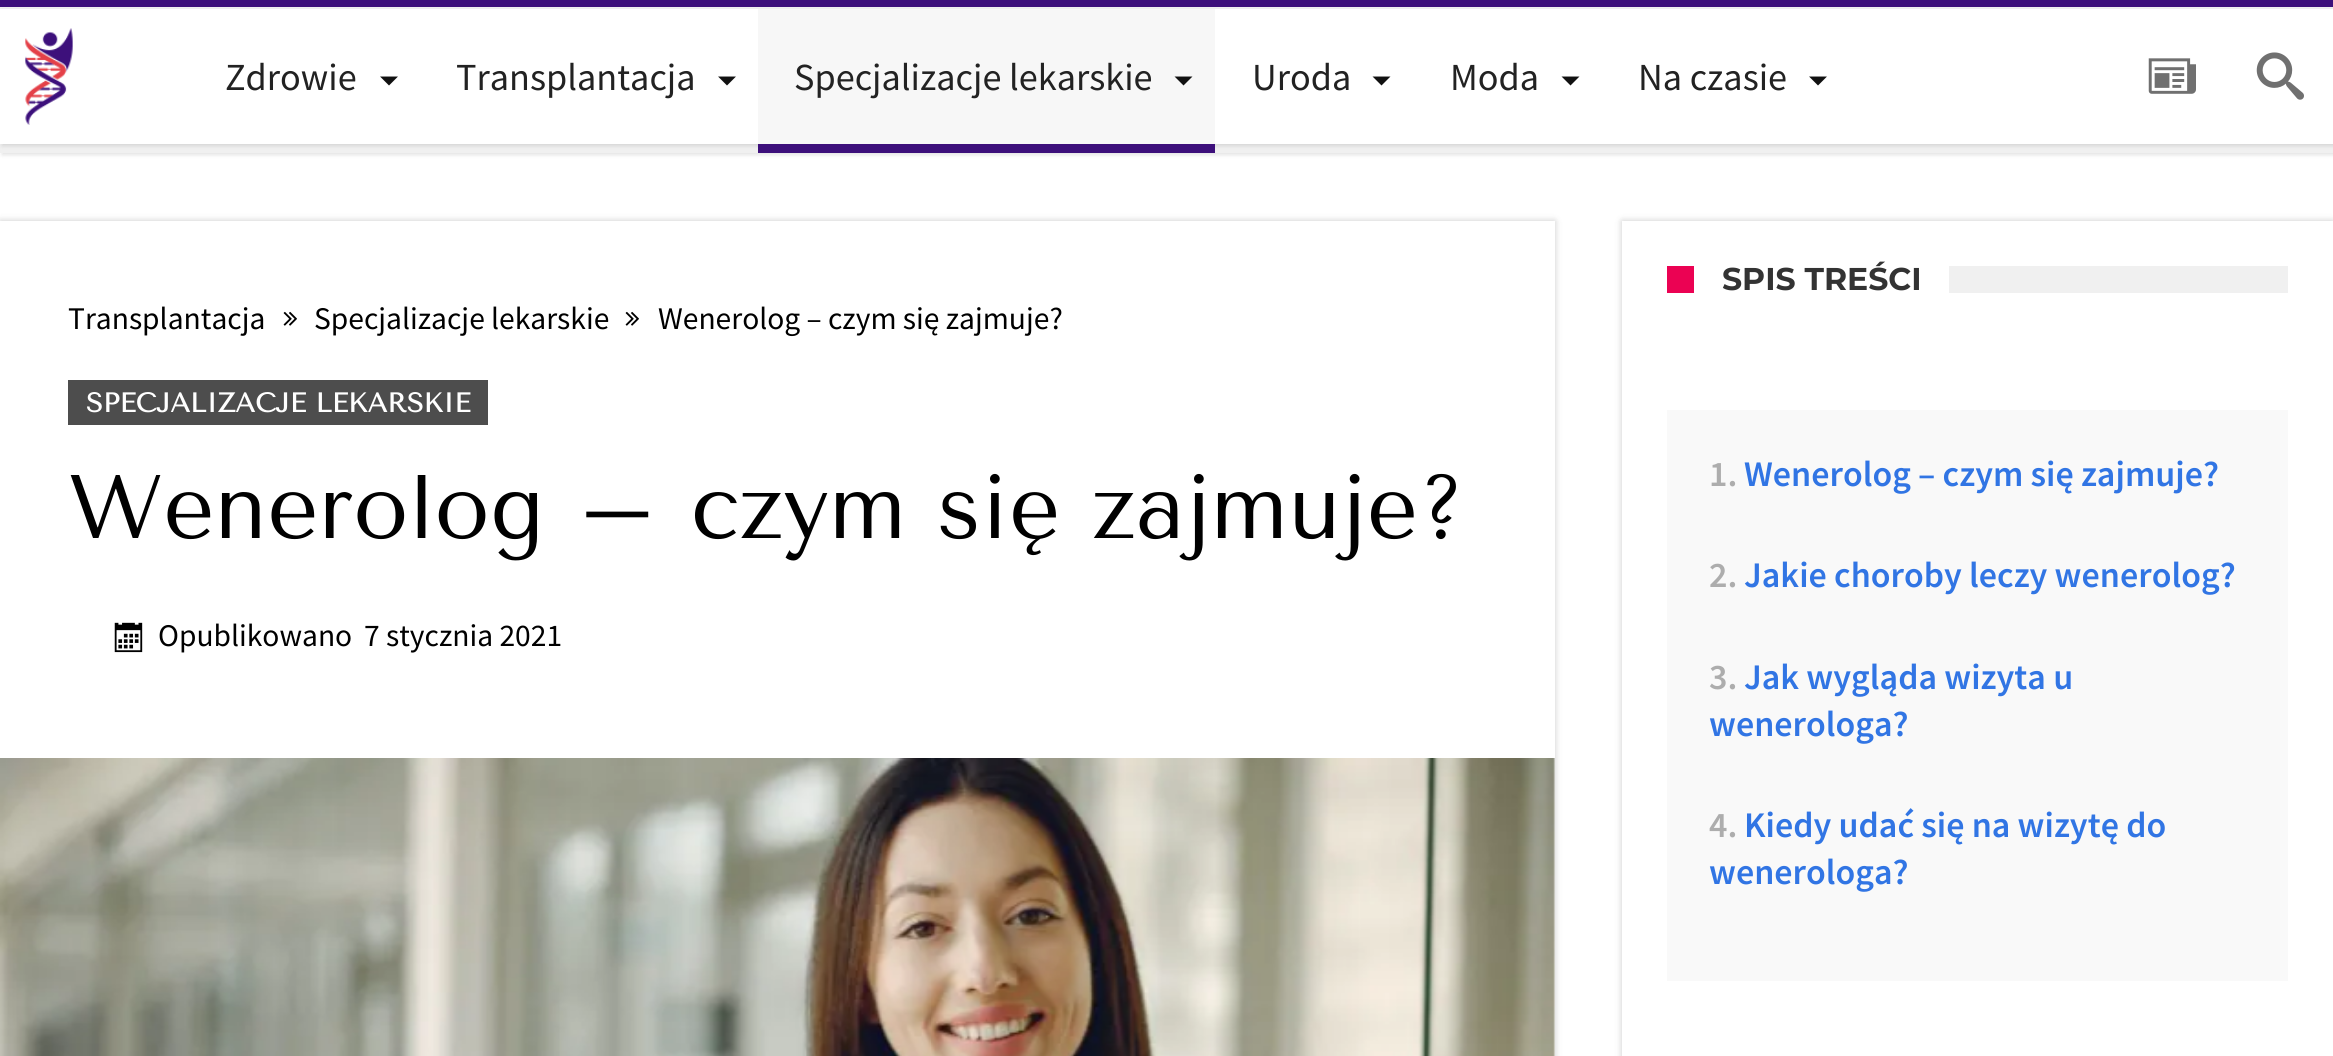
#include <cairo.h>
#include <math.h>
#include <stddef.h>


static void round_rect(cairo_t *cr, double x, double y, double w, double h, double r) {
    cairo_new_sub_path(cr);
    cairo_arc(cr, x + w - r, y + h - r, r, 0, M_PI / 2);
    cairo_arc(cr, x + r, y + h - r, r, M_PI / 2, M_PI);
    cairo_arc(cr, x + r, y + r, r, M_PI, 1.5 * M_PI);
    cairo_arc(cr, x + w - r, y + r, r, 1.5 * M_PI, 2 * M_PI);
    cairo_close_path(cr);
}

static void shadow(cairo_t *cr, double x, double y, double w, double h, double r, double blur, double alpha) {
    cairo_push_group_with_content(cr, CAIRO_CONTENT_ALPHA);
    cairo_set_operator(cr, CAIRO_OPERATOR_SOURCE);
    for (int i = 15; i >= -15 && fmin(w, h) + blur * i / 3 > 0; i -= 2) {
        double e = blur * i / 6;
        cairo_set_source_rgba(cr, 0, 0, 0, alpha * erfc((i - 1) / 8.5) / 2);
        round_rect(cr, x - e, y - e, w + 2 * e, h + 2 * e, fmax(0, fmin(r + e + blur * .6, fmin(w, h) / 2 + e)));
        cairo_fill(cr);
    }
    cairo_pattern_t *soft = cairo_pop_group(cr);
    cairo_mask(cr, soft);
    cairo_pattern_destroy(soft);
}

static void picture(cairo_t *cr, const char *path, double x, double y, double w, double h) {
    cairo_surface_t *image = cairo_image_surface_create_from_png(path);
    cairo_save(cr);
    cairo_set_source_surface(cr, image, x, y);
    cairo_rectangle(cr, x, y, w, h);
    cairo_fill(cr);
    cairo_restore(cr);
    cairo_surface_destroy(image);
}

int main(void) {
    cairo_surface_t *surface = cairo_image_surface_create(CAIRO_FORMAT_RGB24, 2333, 1056);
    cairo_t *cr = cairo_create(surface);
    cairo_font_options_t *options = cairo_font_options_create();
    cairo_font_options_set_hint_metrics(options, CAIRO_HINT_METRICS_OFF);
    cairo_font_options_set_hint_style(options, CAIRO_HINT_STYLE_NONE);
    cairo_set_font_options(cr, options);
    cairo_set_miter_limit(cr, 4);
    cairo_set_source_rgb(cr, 1, 1, 1);
    cairo_paint(cr);
    cairo_set_source_rgb(cr, 0.239, 0.063, 0.482);
    cairo_rectangle(cr, 0, 0, 2333, 7);
    cairo_fill(cr);
    cairo_set_source_rgb(cr, 0, 0, 0);
    shadow(cr, 2, 9, 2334, 146, 0, 2, 0.11);
    cairo_set_source_rgb(cr, 0.941, 0.941, 0.941);
    cairo_rectangle(cr, 0, 7, 2333, 146);
    cairo_fill(cr);
    cairo_set_source_rgb(cr, 0, 0, 0);
    shadow(cr, 2, 11, 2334, 135, 0, 2, 0.11);
    cairo_set_source_rgb(cr, 1, 1, 1);
    cairo_rectangle(cr, 0, 9, 2333, 135);
    cairo_fill(cr);
    picture(cr, "img1.png", 25, 28, 48, 97);
    cairo_select_font_face(cr, "Source Sans Pro", CAIRO_FONT_SLANT_NORMAL, CAIRO_FONT_WEIGHT_NORMAL);
    cairo_set_font_size(cr, 38.25);
    cairo_set_source_rgb(cr, 0.133, 0.133, 0.133);
    cairo_move_to(cr, 225, 90);
    cairo_show_text(cr, "Zdrowie");
    cairo_set_source_rgb(cr, 0.067, 0.067, 0.067);
    cairo_new_path(cr);
    cairo_move_to(cr, 380, 76.5);
    cairo_line_to(cr, 398, 76.5);
    cairo_line_to(cr, 389, 85.5);
    cairo_close_path(cr);
    cairo_fill(cr);
    cairo_set_source_rgb(cr, 0.133, 0.133, 0.133);
    cairo_move_to(cr, 456, 90);
    cairo_show_text(cr, "Transplantacja");
    cairo_set_source_rgb(cr, 0.067, 0.067, 0.067);
    cairo_new_path(cr);
    cairo_move_to(cr, 718, 76.5);
    cairo_line_to(cr, 736, 76.5);
    cairo_line_to(cr, 727, 85.5);
    cairo_close_path(cr);
    cairo_fill(cr);
    cairo_set_source_rgb(cr, 0.965, 0.965, 0.965);
    cairo_rectangle(cr, 758, 9, 457, 135);
    cairo_fill(cr);
    cairo_set_source_rgb(cr, 0.133, 0.133, 0.133);
    cairo_move_to(cr, 794, 90);
    cairo_show_text(cr, "Specjalizacje lekarskie");
    cairo_set_source_rgb(cr, 0.067, 0.067, 0.067);
    cairo_new_path(cr);
    cairo_move_to(cr, 1174.5, 76.5);
    cairo_line_to(cr, 1192.5, 76.5);
    cairo_line_to(cr, 1183.5, 85.5);
    cairo_close_path(cr);
    cairo_fill(cr);
    cairo_set_source_rgb(cr, 0.239, 0.063, 0.482);
    cairo_rectangle(cr, 758, 144, 457, 9);
    cairo_fill(cr);
    cairo_set_source_rgb(cr, 0.133, 0.133, 0.133);
    cairo_move_to(cr, 1252, 90);
    cairo_show_text(cr, "Uroda");
    cairo_set_source_rgb(cr, 0.067, 0.067, 0.067);
    cairo_new_path(cr);
    cairo_move_to(cr, 1372.5, 76.5);
    cairo_line_to(cr, 1390.5, 76.5);
    cairo_line_to(cr, 1381.5, 85.5);
    cairo_close_path(cr);
    cairo_fill(cr);
    cairo_set_source_rgb(cr, 0.133, 0.133, 0.133);
    cairo_move_to(cr, 1450, 90);
    cairo_show_text(cr, "Moda");
    cairo_set_source_rgb(cr, 0.067, 0.067, 0.067);
    cairo_new_path(cr);
    cairo_move_to(cr, 1561.5, 76.5);
    cairo_line_to(cr, 1579.5, 76.5);
    cairo_line_to(cr, 1570.5, 85.5);
    cairo_close_path(cr);
    cairo_fill(cr);
    cairo_set_source_rgb(cr, 0.133, 0.133, 0.133);
    cairo_move_to(cr, 1638, 90);
    cairo_show_text(cr, "Na czasie");
    cairo_set_source_rgb(cr, 0.067, 0.067, 0.067);
    cairo_new_path(cr);
    cairo_move_to(cr, 1809, 76.5);
    cairo_line_to(cr, 1827, 76.5);
    cairo_line_to(cr, 1818, 85.5);
    cairo_close_path(cr);
    cairo_fill(cr);
    picture(cr, "img2.png", 2148, 58, 48, 36);
    picture(cr, "img3.png", 2256, 52, 48, 48);
    cairo_set_source_rgb(cr, 0, 0, 0);
    shadow(cr, 0, 221, 1555, 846, 0, 3.5, 0.21);
    cairo_set_source_rgb(cr, 1, 1, 1);
    cairo_rectangle(cr, 0, 221, 1555, 835);
    cairo_fill(cr);
    cairo_set_font_size(cr, 31.5);
    cairo_set_source_rgb(cr, 0, 0, 0);
    cairo_move_to(cr, 68, 329);
    cairo_show_text(cr, "Transplantacja");
    picture(cr, "img4.png", 283, 311, 14, 15);
    cairo_move_to(cr, 314, 329);
    cairo_show_text(cr, "Specjalizacje lekarskie");
    picture(cr, "img4.png", 625, 311, 14, 15);
    cairo_move_to(cr, 658, 329);
    cairo_show_text(cr, "Wenerolog – czym się zajmuje?");
    cairo_set_source_rgb(cr, 0.302, 0.302, 0.302);
    cairo_rectangle(cr, 68, 380, 420, 45);
    cairo_fill(cr);
    cairo_select_font_face(cr, "Tenor Sans", CAIRO_FONT_SLANT_NORMAL, CAIRO_FONT_WEIGHT_BOLD);
    cairo_set_font_size(cr, 27);
    cairo_set_source_rgb(cr, 1, 1, 1);
    cairo_move_to(cr, 86, 412);
    cairo_show_text(cr, "SPECJALIZACJE LEKARSKIE");
    cairo_select_font_face(cr, "Tenor Sans", CAIRO_FONT_SLANT_NORMAL, CAIRO_FONT_WEIGHT_NORMAL);
    cairo_set_font_size(cr, 90);
    cairo_set_source_rgb(cr, 0, 0, 0);
    cairo_move_to(cr, 68, 538);
    cairo_show_text(cr, "Wenerolog – czym się zajmuje?");
    picture(cr, "img5.png", 114, 622, 29, 31);
    cairo_select_font_face(cr, "Source Sans Pro", CAIRO_FONT_SLANT_NORMAL, CAIRO_FONT_WEIGHT_NORMAL);
    cairo_set_font_size(cr, 31.5);
    cairo_move_to(cr, 158, 646);
    cairo_show_text(cr, "Opublikowano");
    cairo_move_to(cr, 364, 646);
    cairo_show_text(cr, "7 stycznia 2021");
    picture(cr, "img6.png", 0, 758, 1555, 298);
    cairo_set_source_rgb(cr, 0, 0, 0);
    shadow(cr, 1622, 221, 711, 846, 0, 3.5, 0.21);
    cairo_set_source_rgb(cr, 1, 1, 1);
    cairo_rectangle(cr, 1622, 221, 711, 835);
    cairo_fill(cr);
    cairo_set_source_rgb(cr, 0.941, 0.941, 0.941);
    cairo_rectangle(cr, 1949, 266, 339, 27);
    cairo_fill(cr);
    cairo_set_source_rgb(cr, 0.918, 0.008, 0.325);
    cairo_rectangle(cr, 1667, 266, 27, 27);
    cairo_fill(cr);
    cairo_select_font_face(cr, "Montserrat", CAIRO_FONT_SLANT_NORMAL, CAIRO_FONT_WEIGHT_BOLD);
    cairo_set_source_rgb(cr, 0.2, 0.2, 0.2);
    cairo_move_to(cr, 1722, 290);
    cairo_show_text(cr, "SPIS TREŚCI");
    cairo_set_source_rgb(cr, 0.973, 0.973, 0.973);
    cairo_rectangle(cr, 1667, 410, 621, 571);
    cairo_fill(cr);
    cairo_select_font_face(cr, "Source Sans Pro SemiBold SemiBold", CAIRO_FONT_SLANT_NORMAL, CAIRO_FONT_WEIGHT_NORMAL);
    cairo_set_font_size(cr, 36);
    cairo_set_source_rgb(cr, 0.678, 0.678, 0.678);
    cairo_move_to(cr, 1709, 486);
    cairo_show_text(cr, "1.");
    cairo_set_source_rgb(cr, 0.192, 0.459, 0.894);
    cairo_move_to(cr, 1744, 486);
    cairo_show_text(cr, "Wenerolog – czym się zajmuje?");
    cairo_set_source_rgb(cr, 0.678, 0.678, 0.678);
    cairo_move_to(cr, 1709, 587);
    cairo_show_text(cr, "2.");
    cairo_set_source_rgb(cr, 0.192, 0.459, 0.894);
    cairo_move_to(cr, 1744, 587);
    cairo_show_text(cr, "Jakie choroby leczy wenerolog?");
    cairo_set_source_rgb(cr, 0.678, 0.678, 0.678);
    cairo_move_to(cr, 1709, 689);
    cairo_show_text(cr, "3.");
    cairo_set_source_rgb(cr, 0.192, 0.459, 0.894);
    cairo_move_to(cr, 1744, 689);
    cairo_show_text(cr, "Jak wygląda wizyta u");
    cairo_move_to(cr, 1709, 736);
    cairo_show_text(cr, "wenerologa?");
    cairo_set_source_rgb(cr, 0.678, 0.678, 0.678);
    cairo_move_to(cr, 1709, 837);
    cairo_show_text(cr, "4.");
    cairo_set_source_rgb(cr, 0.192, 0.459, 0.894);
    cairo_move_to(cr, 1744, 837);
    cairo_show_text(cr, "Kiedy udać się na wizytę do");
    cairo_move_to(cr, 1709, 884);
    cairo_show_text(cr, "wenerologa?");
    cairo_surface_write_to_png(surface, "page.png");
    cairo_font_options_destroy(options);
    cairo_destroy(cr);
    cairo_surface_destroy(surface);
    return 0;
}
